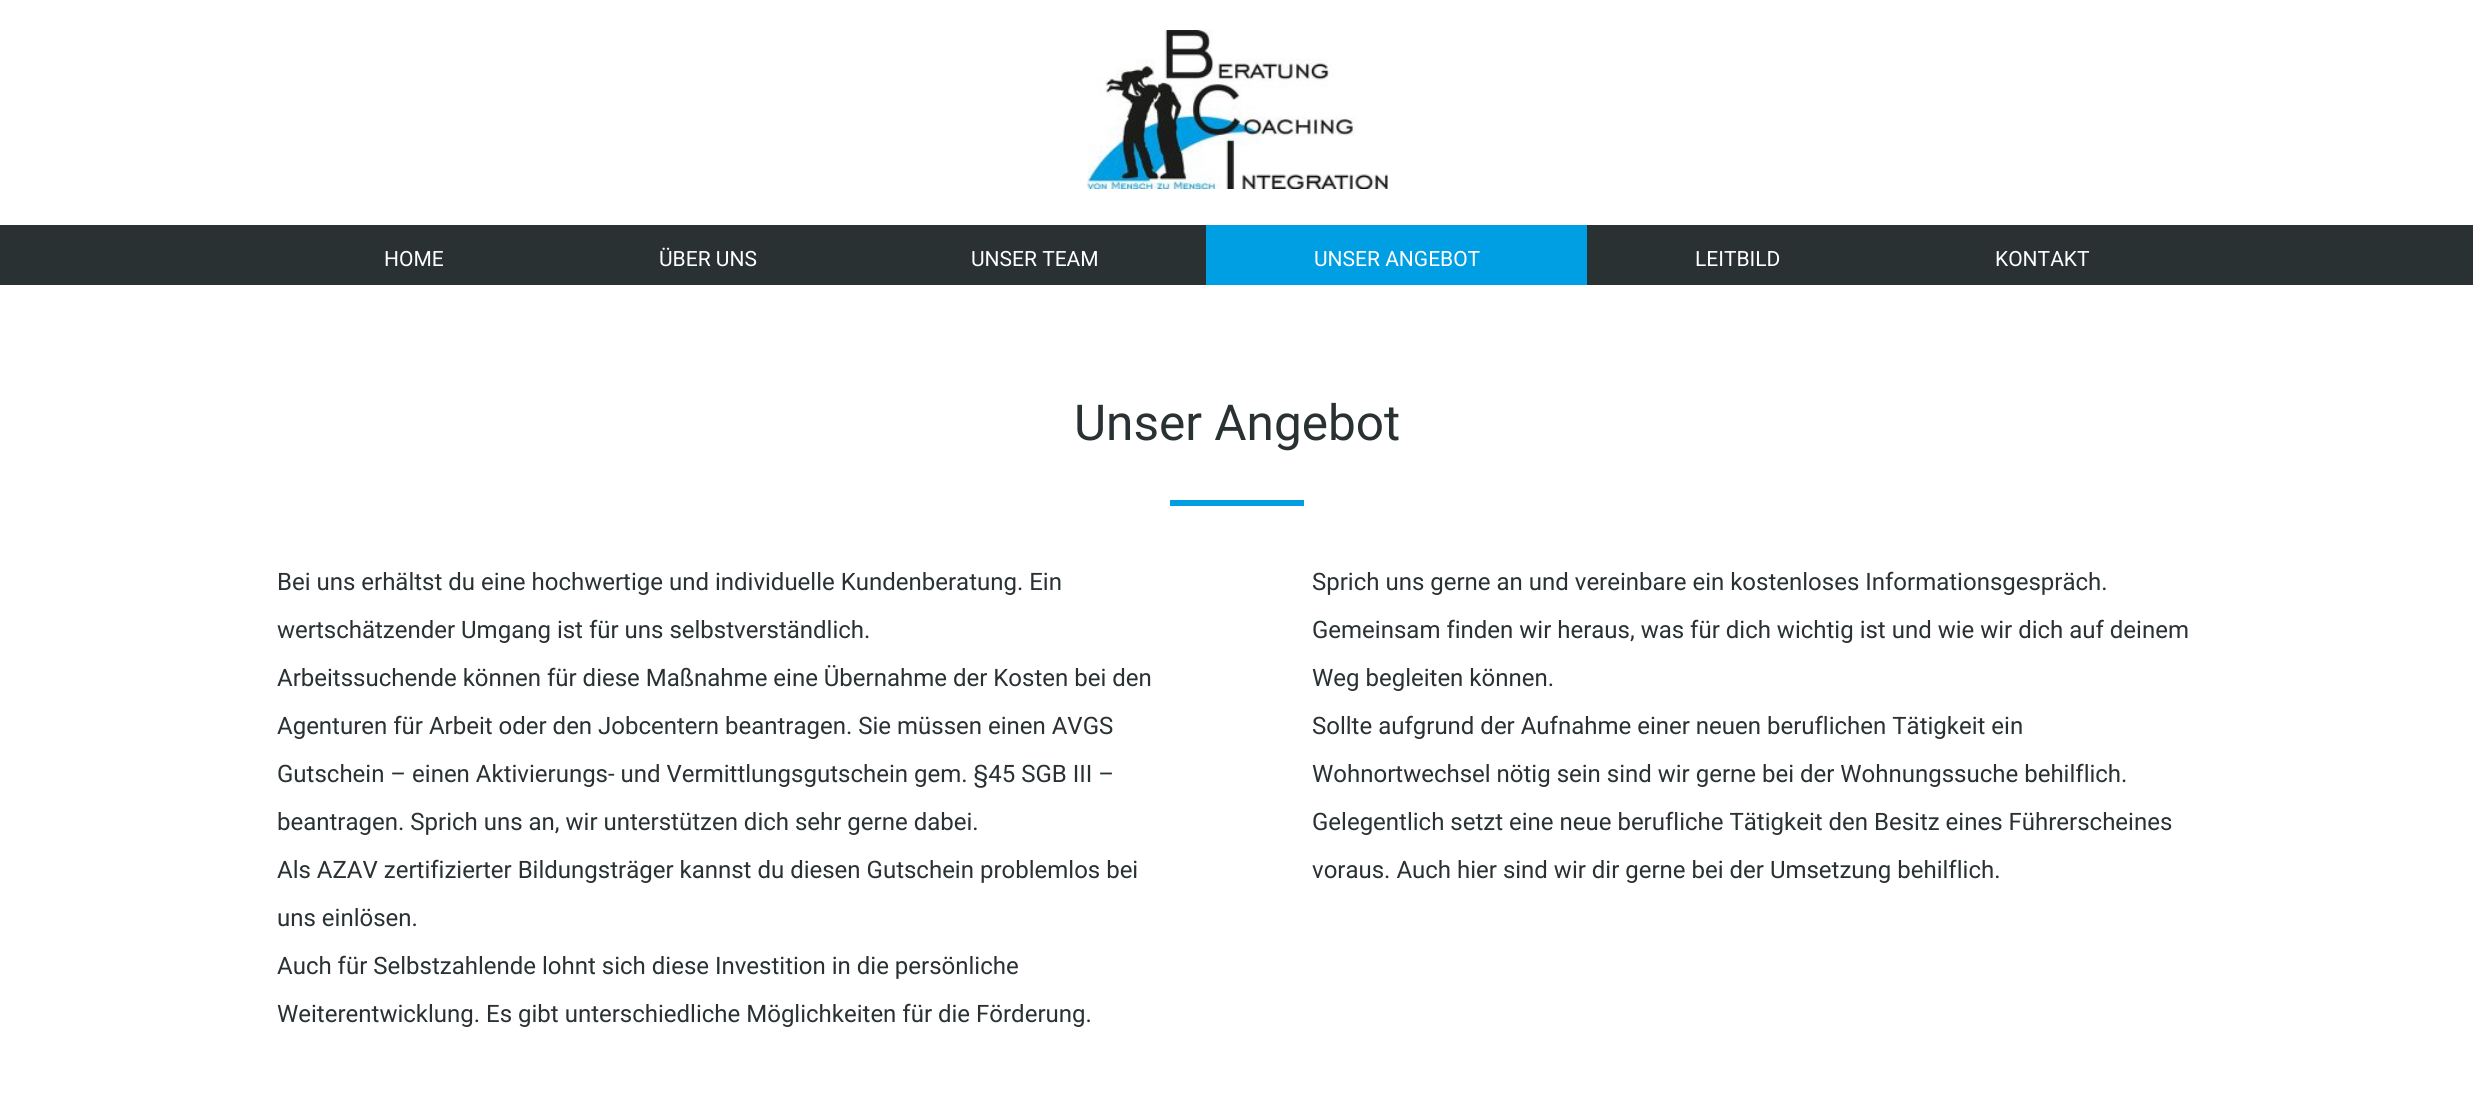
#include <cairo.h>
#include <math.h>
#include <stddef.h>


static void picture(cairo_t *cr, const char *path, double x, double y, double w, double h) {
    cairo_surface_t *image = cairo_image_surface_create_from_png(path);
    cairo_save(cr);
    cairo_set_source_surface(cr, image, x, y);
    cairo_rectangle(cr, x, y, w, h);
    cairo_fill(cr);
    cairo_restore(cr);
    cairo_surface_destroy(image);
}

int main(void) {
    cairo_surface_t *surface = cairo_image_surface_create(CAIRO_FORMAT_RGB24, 2473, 1110);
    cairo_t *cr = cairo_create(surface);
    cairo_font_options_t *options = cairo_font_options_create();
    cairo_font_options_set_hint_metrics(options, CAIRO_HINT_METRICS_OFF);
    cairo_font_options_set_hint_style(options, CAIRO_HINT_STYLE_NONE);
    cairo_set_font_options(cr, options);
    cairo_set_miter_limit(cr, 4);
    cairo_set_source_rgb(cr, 1, 1, 1);
    cairo_paint(cr);
    picture(cr, "img1.png", 1087, 30, 301, 159);
    cairo_set_source_rgb(cr, 0.161, 0.192, 0.2);
    cairo_rectangle(cr, 0, 225, 2473, 60);
    cairo_fill(cr);
    cairo_select_font_face(cr, "Roboto", CAIRO_FONT_SLANT_NORMAL, CAIRO_FONT_WEIGHT_NORMAL);
    cairo_set_font_size(cr, 21);
    cairo_set_source_rgb(cr, 1, 1, 1);
    cairo_move_to(cr, 384, 266);
    cairo_show_text(cr, "HOME");
    cairo_move_to(cr, 659, 266);
    cairo_show_text(cr, "ÜBER UNS");
    cairo_move_to(cr, 971, 266);
    cairo_show_text(cr, "UNSER TEAM");
    cairo_set_source_rgb(cr, 0, 0.624, 0.89);
    cairo_rectangle(cr, 1206, 225, 381, 60);
    cairo_fill(cr);
    cairo_set_source_rgb(cr, 1, 1, 1);
    cairo_move_to(cr, 1314, 266);
    cairo_show_text(cr, "UNSER ANGEBOT");
    cairo_move_to(cr, 1695, 266);
    cairo_show_text(cr, "LEITBILD");
    cairo_move_to(cr, 1995, 266);
    cairo_show_text(cr, "KONTAKT");
    cairo_set_font_size(cr, 49.5);
    cairo_set_source_rgb(cr, 0.161, 0.192, 0.2);
    cairo_move_to(cr, 1074, 440);
    cairo_show_text(cr, "Unser Angebot");
    cairo_set_source_rgb(cr, 0, 0.624, 0.89);
    cairo_rectangle(cr, 1170, 500, 134, 6);
    cairo_fill(cr);
    cairo_set_font_size(cr, 24);
    cairo_set_source_rgb(cr, 0.161, 0.192, 0.2);
    cairo_move_to(cr, 277, 590);
    cairo_show_text(cr, "Bei uns erhältst du eine hochwertige und individuelle Kundenberatung. Ein");
    cairo_move_to(cr, 277, 638);
    cairo_show_text(cr, "wertschätzender Umgang ist für uns selbstverständlich.");
    cairo_move_to(cr, 277, 686);
    cairo_show_text(cr, "Arbeitssuchende können für diese Maßnahme eine Übernahme der Kosten bei den");
    cairo_move_to(cr, 277, 734);
    cairo_show_text(cr, "Agenturen für Arbeit oder den Jobcentern beantragen. Sie müssen einen AVGS");
    cairo_move_to(cr, 277, 782);
    cairo_show_text(cr, "Gutschein – einen Aktivierungs- und Vermittlungsgutschein gem. §45 SGB III –");
    cairo_move_to(cr, 277, 830);
    cairo_show_text(cr, "beantragen. Sprich uns an, wir unterstützen dich sehr gerne dabei.");
    cairo_move_to(cr, 277, 878);
    cairo_show_text(cr, "Als AZAV zertifizierter Bildungsträger kannst du diesen Gutschein problemlos bei");
    cairo_move_to(cr, 277, 926);
    cairo_show_text(cr, "uns einlösen.");
    cairo_move_to(cr, 277, 974);
    cairo_show_text(cr, "Auch für Selbstzahlende lohnt sich diese Investition in die persönliche");
    cairo_move_to(cr, 277, 1022);
    cairo_show_text(cr, "Weiterentwicklung. Es gibt unterschiedliche Möglichkeiten für die Förderung.");
    cairo_move_to(cr, 1312, 590);
    cairo_show_text(cr, "Sprich uns gerne an und vereinbare ein kostenloses Informationsgespräch.");
    cairo_move_to(cr, 1312, 638);
    cairo_show_text(cr, "Gemeinsam finden wir heraus, was für dich wichtig ist und wie wir dich auf deinem");
    cairo_move_to(cr, 1312, 686);
    cairo_show_text(cr, "Weg begleiten können.");
    cairo_move_to(cr, 1312, 734);
    cairo_show_text(cr, "Sollte aufgrund der Aufnahme einer neuen beruflichen Tätigkeit ein");
    cairo_move_to(cr, 1312, 782);
    cairo_show_text(cr, "Wohnortwechsel nötig sein sind wir gerne bei der Wohnungssuche behilflich.");
    cairo_move_to(cr, 1312, 830);
    cairo_show_text(cr, "Gelegentlich setzt eine neue berufliche Tätigkeit den Besitz eines Führerscheines");
    cairo_move_to(cr, 1312, 878);
    cairo_show_text(cr, "voraus. Auch hier sind wir dir gerne bei der Umsetzung behilflich.");
    cairo_surface_write_to_png(surface, "page.png");
    cairo_font_options_destroy(options);
    cairo_destroy(cr);
    cairo_surface_destroy(surface);
    return 0;
}
